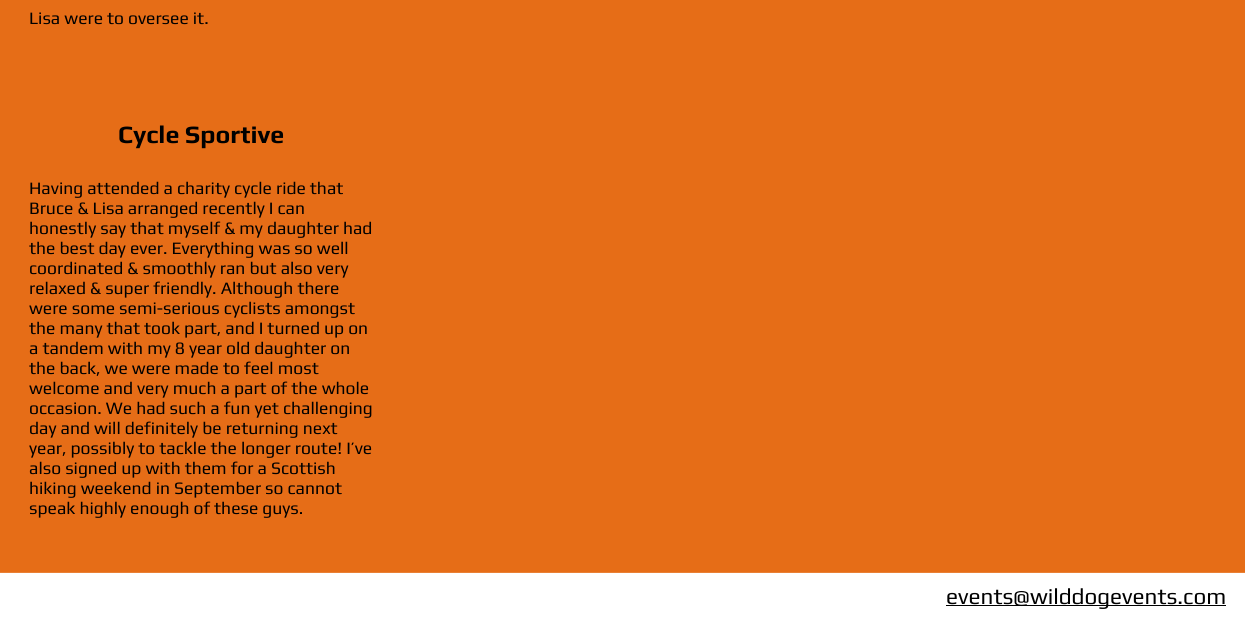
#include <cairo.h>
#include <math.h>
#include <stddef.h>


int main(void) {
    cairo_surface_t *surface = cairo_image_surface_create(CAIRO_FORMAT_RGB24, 1245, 627);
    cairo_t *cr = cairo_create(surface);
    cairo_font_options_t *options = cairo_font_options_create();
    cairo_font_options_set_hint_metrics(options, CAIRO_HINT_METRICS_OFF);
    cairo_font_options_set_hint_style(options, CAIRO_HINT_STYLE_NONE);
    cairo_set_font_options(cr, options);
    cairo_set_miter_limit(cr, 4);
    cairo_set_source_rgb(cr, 1, 1, 1);
    cairo_paint(cr);
    cairo_set_source_rgb(cr, 0.902, 0.427, 0.09);
    cairo_rectangle(cr, 0, 0, 1245, 572);
    cairo_fill(cr);
    cairo_select_font_face(cr, "Play", CAIRO_FONT_SLANT_NORMAL, CAIRO_FONT_WEIGHT_NORMAL);
    cairo_set_font_size(cr, 17.5);
    cairo_set_source_rgb(cr, 0, 0, 0);
    cairo_move_to(cr, 29, 24);
    cairo_show_text(cr, "Lisa were to oversee it.");
    cairo_select_font_face(cr, "Play", CAIRO_FONT_SLANT_NORMAL, CAIRO_FONT_WEIGHT_BOLD);
    cairo_set_font_size(cr, 25);
    cairo_move_to(cr, 118, 143);
    cairo_show_text(cr, "Cycle Sportive");
    cairo_select_font_face(cr, "Play", CAIRO_FONT_SLANT_NORMAL, CAIRO_FONT_WEIGHT_NORMAL);
    cairo_set_font_size(cr, 17.5);
    cairo_move_to(cr, 29, 194);
    cairo_show_text(cr, "Having attended a charity cycle ride that");
    cairo_move_to(cr, 29, 214);
    cairo_show_text(cr, "Bruce & Lisa arranged recently I can");
    cairo_move_to(cr, 29, 234);
    cairo_show_text(cr, "honestly say that myself & my daughter had");
    cairo_move_to(cr, 29, 254);
    cairo_show_text(cr, "the best day ever. Everything was so well");
    cairo_move_to(cr, 29, 274);
    cairo_show_text(cr, "coordinated & smoothly ran but also very");
    cairo_move_to(cr, 29, 294);
    cairo_show_text(cr, "relaxed & super friendly. Although there");
    cairo_move_to(cr, 29, 314);
    cairo_show_text(cr, "were some semi-serious cyclists amongst");
    cairo_move_to(cr, 29, 334);
    cairo_show_text(cr, "the many that took part, and I turned up on");
    cairo_move_to(cr, 29, 354);
    cairo_show_text(cr, "a tandem with my 8 year old daughter on");
    cairo_move_to(cr, 29, 374);
    cairo_show_text(cr, "the back, we were made to feel most");
    cairo_move_to(cr, 29, 394);
    cairo_show_text(cr, "welcome and very much a part of the whole");
    cairo_move_to(cr, 29, 414);
    cairo_show_text(cr, "occasion. We had such a fun yet challenging");
    cairo_move_to(cr, 29, 434);
    cairo_show_text(cr, "day and will definitely be returning next");
    cairo_move_to(cr, 29, 454);
    cairo_show_text(cr, "year, possibly to tackle the longer route! I’ve");
    cairo_move_to(cr, 29, 474);
    cairo_show_text(cr, "also signed up with them for a Scottish");
    cairo_move_to(cr, 29, 494);
    cairo_show_text(cr, "hiking weekend in September so cannot");
    cairo_move_to(cr, 29, 514);
    cairo_show_text(cr, "speak highly enough of these guys.");
    cairo_set_source_rgb(cr, 0.914, 0.502, 0.208);
    cairo_rectangle(cr, 0, 572, 1245, 1);
    cairo_fill(cr);
    cairo_set_source_rgb(cr, 0, 0, 0);
    cairo_rectangle(cr, 946, 605, 280, 1);
    cairo_fill(cr);
    cairo_set_font_size(cr, 22.5);
    cairo_move_to(cr, 946, 604);
    cairo_show_text(cr, "events@wilddogevents.com");
    cairo_surface_write_to_png(surface, "page.png");
    cairo_font_options_destroy(options);
    cairo_destroy(cr);
    cairo_surface_destroy(surface);
    return 0;
}
